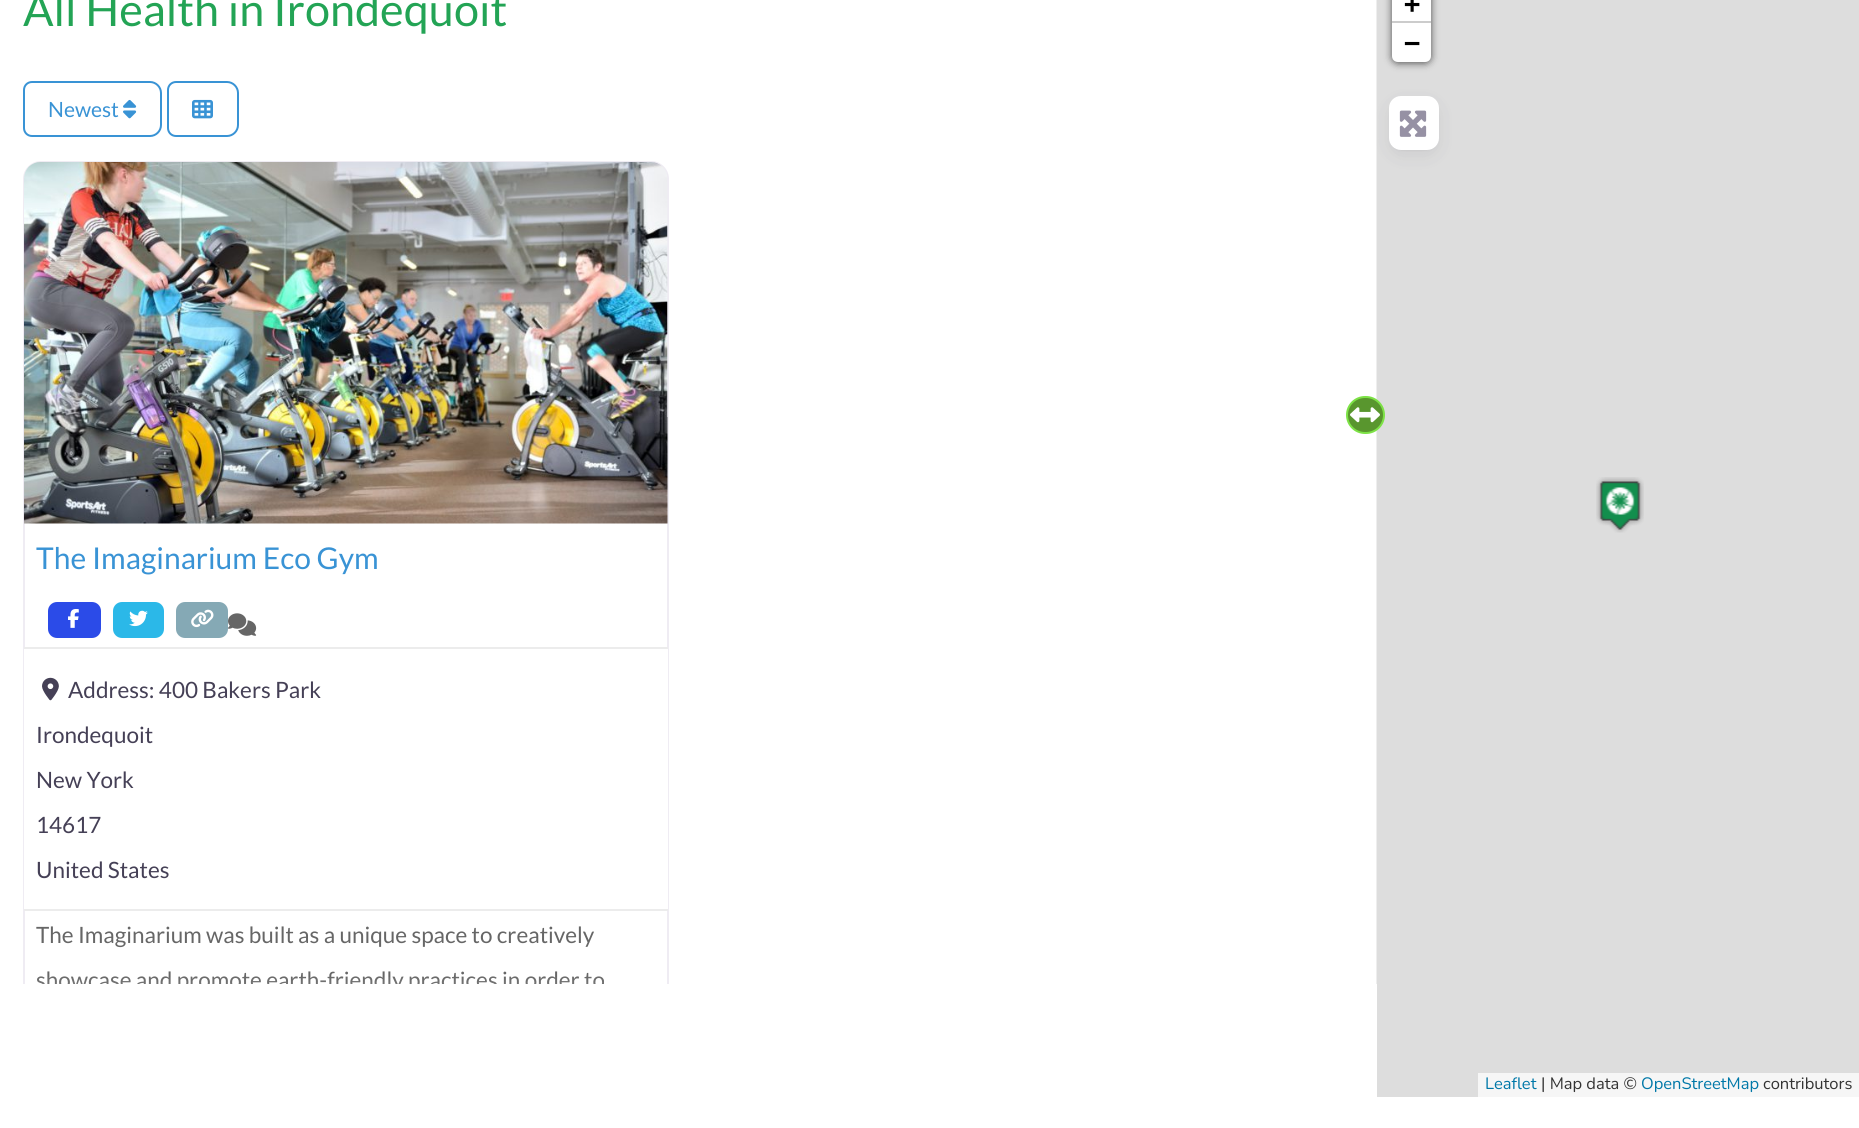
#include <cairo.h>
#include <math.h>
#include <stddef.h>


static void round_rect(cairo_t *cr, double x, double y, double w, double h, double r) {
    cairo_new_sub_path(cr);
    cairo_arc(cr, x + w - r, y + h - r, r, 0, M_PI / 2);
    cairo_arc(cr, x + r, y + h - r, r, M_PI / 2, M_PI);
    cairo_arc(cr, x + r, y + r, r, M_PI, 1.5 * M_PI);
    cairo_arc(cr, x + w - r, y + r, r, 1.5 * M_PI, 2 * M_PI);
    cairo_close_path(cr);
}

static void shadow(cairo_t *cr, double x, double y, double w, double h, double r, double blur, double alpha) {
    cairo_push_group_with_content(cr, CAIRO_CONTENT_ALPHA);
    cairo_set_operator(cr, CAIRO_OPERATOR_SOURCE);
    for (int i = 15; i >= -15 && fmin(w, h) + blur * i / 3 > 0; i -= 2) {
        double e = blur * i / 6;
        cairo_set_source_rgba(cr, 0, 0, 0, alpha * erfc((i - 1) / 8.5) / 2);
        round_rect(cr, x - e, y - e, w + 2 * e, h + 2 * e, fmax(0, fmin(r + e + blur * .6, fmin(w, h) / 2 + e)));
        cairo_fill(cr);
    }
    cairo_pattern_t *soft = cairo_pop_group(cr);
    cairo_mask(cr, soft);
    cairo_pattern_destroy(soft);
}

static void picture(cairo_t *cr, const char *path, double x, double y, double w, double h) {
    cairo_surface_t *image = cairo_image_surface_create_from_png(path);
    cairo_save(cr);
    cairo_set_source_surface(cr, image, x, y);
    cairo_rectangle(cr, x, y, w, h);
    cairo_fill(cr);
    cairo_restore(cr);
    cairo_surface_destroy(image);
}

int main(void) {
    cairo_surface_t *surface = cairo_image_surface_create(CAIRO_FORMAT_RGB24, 1859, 1128);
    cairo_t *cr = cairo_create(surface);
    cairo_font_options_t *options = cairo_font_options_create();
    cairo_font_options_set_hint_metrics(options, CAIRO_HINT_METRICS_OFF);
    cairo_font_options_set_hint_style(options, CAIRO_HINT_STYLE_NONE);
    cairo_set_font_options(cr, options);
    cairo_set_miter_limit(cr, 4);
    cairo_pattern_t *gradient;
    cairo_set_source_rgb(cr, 1, 1, 1);
    cairo_paint(cr);
    cairo_set_source_rgb(cr, 0.933, 0.933, 0.933);
    cairo_rectangle(cr, 1376, 0, 1, 984);
    cairo_fill(cr);
    cairo_select_font_face(cr, "Lato", CAIRO_FONT_SLANT_NORMAL, CAIRO_FONT_WEIGHT_NORMAL);
    cairo_set_font_size(cr, 45);
    cairo_set_source_rgb(cr, 0.137, 0.643, 0.333);
    cairo_move_to(cr, 23, 26);
    cairo_show_text(cr, "All Health in Irondequoit");
    cairo_new_path(cr);
    cairo_move_to(cr, 32, 82);
    cairo_line_to(cr, 150, 82);
    cairo_curve_to(cr, 156, 82, 161, 87, 161, 93);
    cairo_line_to(cr, 161, 125);
    cairo_curve_to(cr, 161, 131, 156, 136, 150, 136);
    cairo_line_to(cr, 32, 136);
    cairo_curve_to(cr, 27.5, 136, 24, 132.5, 24, 128);
    cairo_line_to(cr, 24, 90);
    cairo_curve_to(cr, 24, 85.5, 27.5, 82, 32, 82);
    cairo_close_path(cr);
    cairo_set_source_rgb(cr, 0.224, 0.576, 0.835);
    cairo_stroke(cr);
    cairo_set_font_size(cr, 21);
    cairo_move_to(cr, 48, 117);
    cairo_show_text(cr, "Newest");
    picture(cr, "img1.png", 123, 99, 14, 20);
    cairo_new_path(cr);
    cairo_move_to(cr, 176, 82);
    cairo_line_to(cr, 227, 82);
    cairo_curve_to(cr, 233, 82, 238, 87, 238, 93);
    cairo_line_to(cr, 238, 125);
    cairo_curve_to(cr, 238, 131, 233, 136, 227, 136);
    cairo_line_to(cr, 176, 136);
    cairo_curve_to(cr, 171.5, 136, 168, 132.5, 168, 128);
    cairo_line_to(cr, 168, 90);
    cairo_curve_to(cr, 168, 85.5, 171.5, 82, 176, 82);
    cairo_close_path(cr);
    cairo_stroke(cr);
    picture(cr, "img2.png", 192, 99, 21, 20);
    cairo_save(cr);
    cairo_rectangle(cr, 0, 0, 1376, 984);
    cairo_clip(cr);
    round_rect(cr, 24, 162, 644, 941, 17);
    cairo_set_source_rgb(cr, 0.937, 0.925, 0.953);
    cairo_stroke(cr);
    cairo_restore(cr);
    picture(cr, "img3.png", 24, 162, 644, 362);
    cairo_set_font_size(cr, 30);
    cairo_move_to(cr, 36, 569);
    cairo_show_text(cr, "The Imaginarium Eco Gym");
    cairo_set_source_rgb(cr, 0.169, 0.294, 0.91);
    round_rect(cr, 48, 602, 53, 36, 9);
    cairo_fill(cr);
    picture(cr, "img4.png", 68, 609, 11, 19);
    cairo_set_source_rgb(cr, 0.169, 0.722, 0.91);
    round_rect(cr, 113, 602, 51, 36, 9);
    cairo_fill(cr);
    picture(cr, "img5.png", 129, 610, 19, 17);
    cairo_set_source_rgb(cr, 0.522, 0.663, 0.71);
    round_rect(cr, 176, 602, 52, 36, 9);
    cairo_fill(cr);
    picture(cr, "img6.png", 191, 609, 23, 19);
    picture(cr, "img7.png", 228, 613, 29, 23);
    cairo_set_source_rgb(cr, 1, 1, 1);
    cairo_rectangle(cr, 24, 649, 644, 260);
    cairo_fill(cr);
    cairo_set_source_rgb(cr, 0.922, 0.922, 0.922);
    cairo_rectangle(cr, 24, 647, 644, 2);
    cairo_fill(cr);
    cairo_rectangle(cr, 24, 909, 644, 2);
    cairo_fill(cr);
    picture(cr, "img8.png", 42, 677, 17, 24);
    cairo_set_font_size(cr, 22.5);
    cairo_set_source_rgb(cr, 0.271, 0.251, 0.337);
    cairo_move_to(cr, 68, 698);
    cairo_show_text(cr, "Address: 400 Bakers Park");
    cairo_move_to(cr, 36, 743);
    cairo_show_text(cr, "Irondequoit");
    cairo_move_to(cr, 36, 788);
    cairo_show_text(cr, "New York");
    cairo_move_to(cr, 36, 833);
    cairo_show_text(cr, "14617");
    cairo_move_to(cr, 36, 878);
    cairo_show_text(cr, "United States");
    cairo_set_source_rgb(cr, 0.4, 0.4, 0.4);
    cairo_move_to(cr, 36, 943);
    cairo_show_text(cr, "The Imaginarium was built as a unique space to creatively");
    cairo_save(cr);
    cairo_rectangle(cr, 36, 911, 620, 73);
    cairo_clip(cr);
    cairo_move_to(cr, 36, 988);
    cairo_show_text(cr, "showcase and promote earth-friendly practices in order to");
    cairo_restore(cr);
    gradient = cairo_pattern_create_linear(346, 974, 346, 1091);
    cairo_pattern_add_color_stop_rgba(gradient, 0, 1, 1, 1, 0);
    cairo_pattern_add_color_stop_rgba(gradient, 1, 1, 1, 1, 1);
    cairo_set_source(cr, gradient);
    cairo_pattern_destroy(gradient);
    cairo_rectangle(cr, 36, 977, 568, 7);
    cairo_fill(cr);
    cairo_set_source_rgb(cr, 0.867, 0.867, 0.867);
    cairo_rectangle(cr, 1377, 0, 482, 1097);
    cairo_fill(cr);
    cairo_set_source_rgb(cr, 0.349, 0.588, 0.18);
    round_rect(cr, 1347, 397, 37, 36, 18);
    cairo_fill_preserve(cr);
    cairo_set_source_rgb(cr, 0.49, 0.886, 0.275);
    cairo_stroke(cr);
    picture(cr, "img9.png", 1350, 407, 30, 16);
    cairo_set_source_rgb(cr, 0, 0, 0);
    shadow(cr, 1392, -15, 39, 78, 6, 4, 0.65);
    cairo_set_source_rgb(cr, 1, 1, 1);
    cairo_rectangle(cr, 1392, 0, 39, 21);
    cairo_fill(cr);
    cairo_set_source_rgb(cr, 0.8, 0.8, 0.8);
    cairo_rectangle(cr, 1392, 21, 39, 2);
    cairo_fill(cr);
    cairo_select_font_face(cr, "DejaVu Sans Mono", CAIRO_FONT_SLANT_NORMAL, CAIRO_FONT_WEIGHT_BOLD);
    cairo_set_font_size(cr, 27);
    cairo_set_source_rgb(cr, 0, 0, 0);
    cairo_move_to(cr, 1404, 13);
    cairo_show_text(cr, "+");
    cairo_set_source_rgb(cr, 1, 1, 1);
    cairo_new_path(cr);
    cairo_move_to(cr, 1392, 23);
    cairo_line_to(cr, 1431, 23);
    cairo_line_to(cr, 1431, 56);
    cairo_curve_to(cr, 1431, 59.5, 1428.5, 62, 1425, 62);
    cairo_line_to(cr, 1398, 62);
    cairo_curve_to(cr, 1394.5, 62, 1392, 59.5, 1392, 56);
    cairo_close_path(cr);
    cairo_fill(cr);
    cairo_set_source_rgb(cr, 0, 0, 0);
    cairo_move_to(cr, 1404, 52);
    cairo_show_text(cr, "−");
    cairo_set_source_rgb(cr, 0.961, 0.961, 0.961);
    cairo_rectangle(cr, 1478, 1073, 381, 24);
    cairo_fill(cr);
    cairo_select_font_face(cr, "Nunito", CAIRO_FONT_SLANT_NORMAL, CAIRO_FONT_WEIGHT_NORMAL);
    cairo_set_font_size(cr, 16.5);
    cairo_set_source_rgb(cr, 0, 0.471, 0.659);
    cairo_move_to(cr, 1485, 1089);
    cairo_show_text(cr, "Leaflet");
    cairo_set_source_rgb(cr, 0.2, 0.2, 0.2);
    cairo_move_to(cr, 1541, 1089);
    cairo_show_text(cr, "| Map data ©");
    cairo_set_source_rgb(cr, 0, 0.471, 0.659);
    cairo_move_to(cr, 1641, 1089);
    cairo_show_text(cr, "OpenStreetMap");
    cairo_set_source_rgb(cr, 0.2, 0.2, 0.2);
    cairo_move_to(cr, 1763, 1089);
    cairo_show_text(cr, "contributors");
    picture(cr, "img10.png", 1596, 477, 48, 56);
    cairo_set_source_rgb(cr, 0.122, 0.106, 0.176);
    shadow(cr, 1389, 102, 50, 54, 12, 9, 0.08);
    shadow(cr, 1392, 102, 44, 48, 9, 1.5, 0.08);
    cairo_set_source_rgb(cr, 1, 1, 1);
    round_rect(cr, 1389, 96, 50, 54, 12);
    cairo_fill(cr);
    picture(cr, "img11.png", 1399, 110, 28, 27);
    cairo_surface_write_to_png(surface, "page.png");
    cairo_font_options_destroy(options);
    cairo_destroy(cr);
    cairo_surface_destroy(surface);
    return 0;
}
